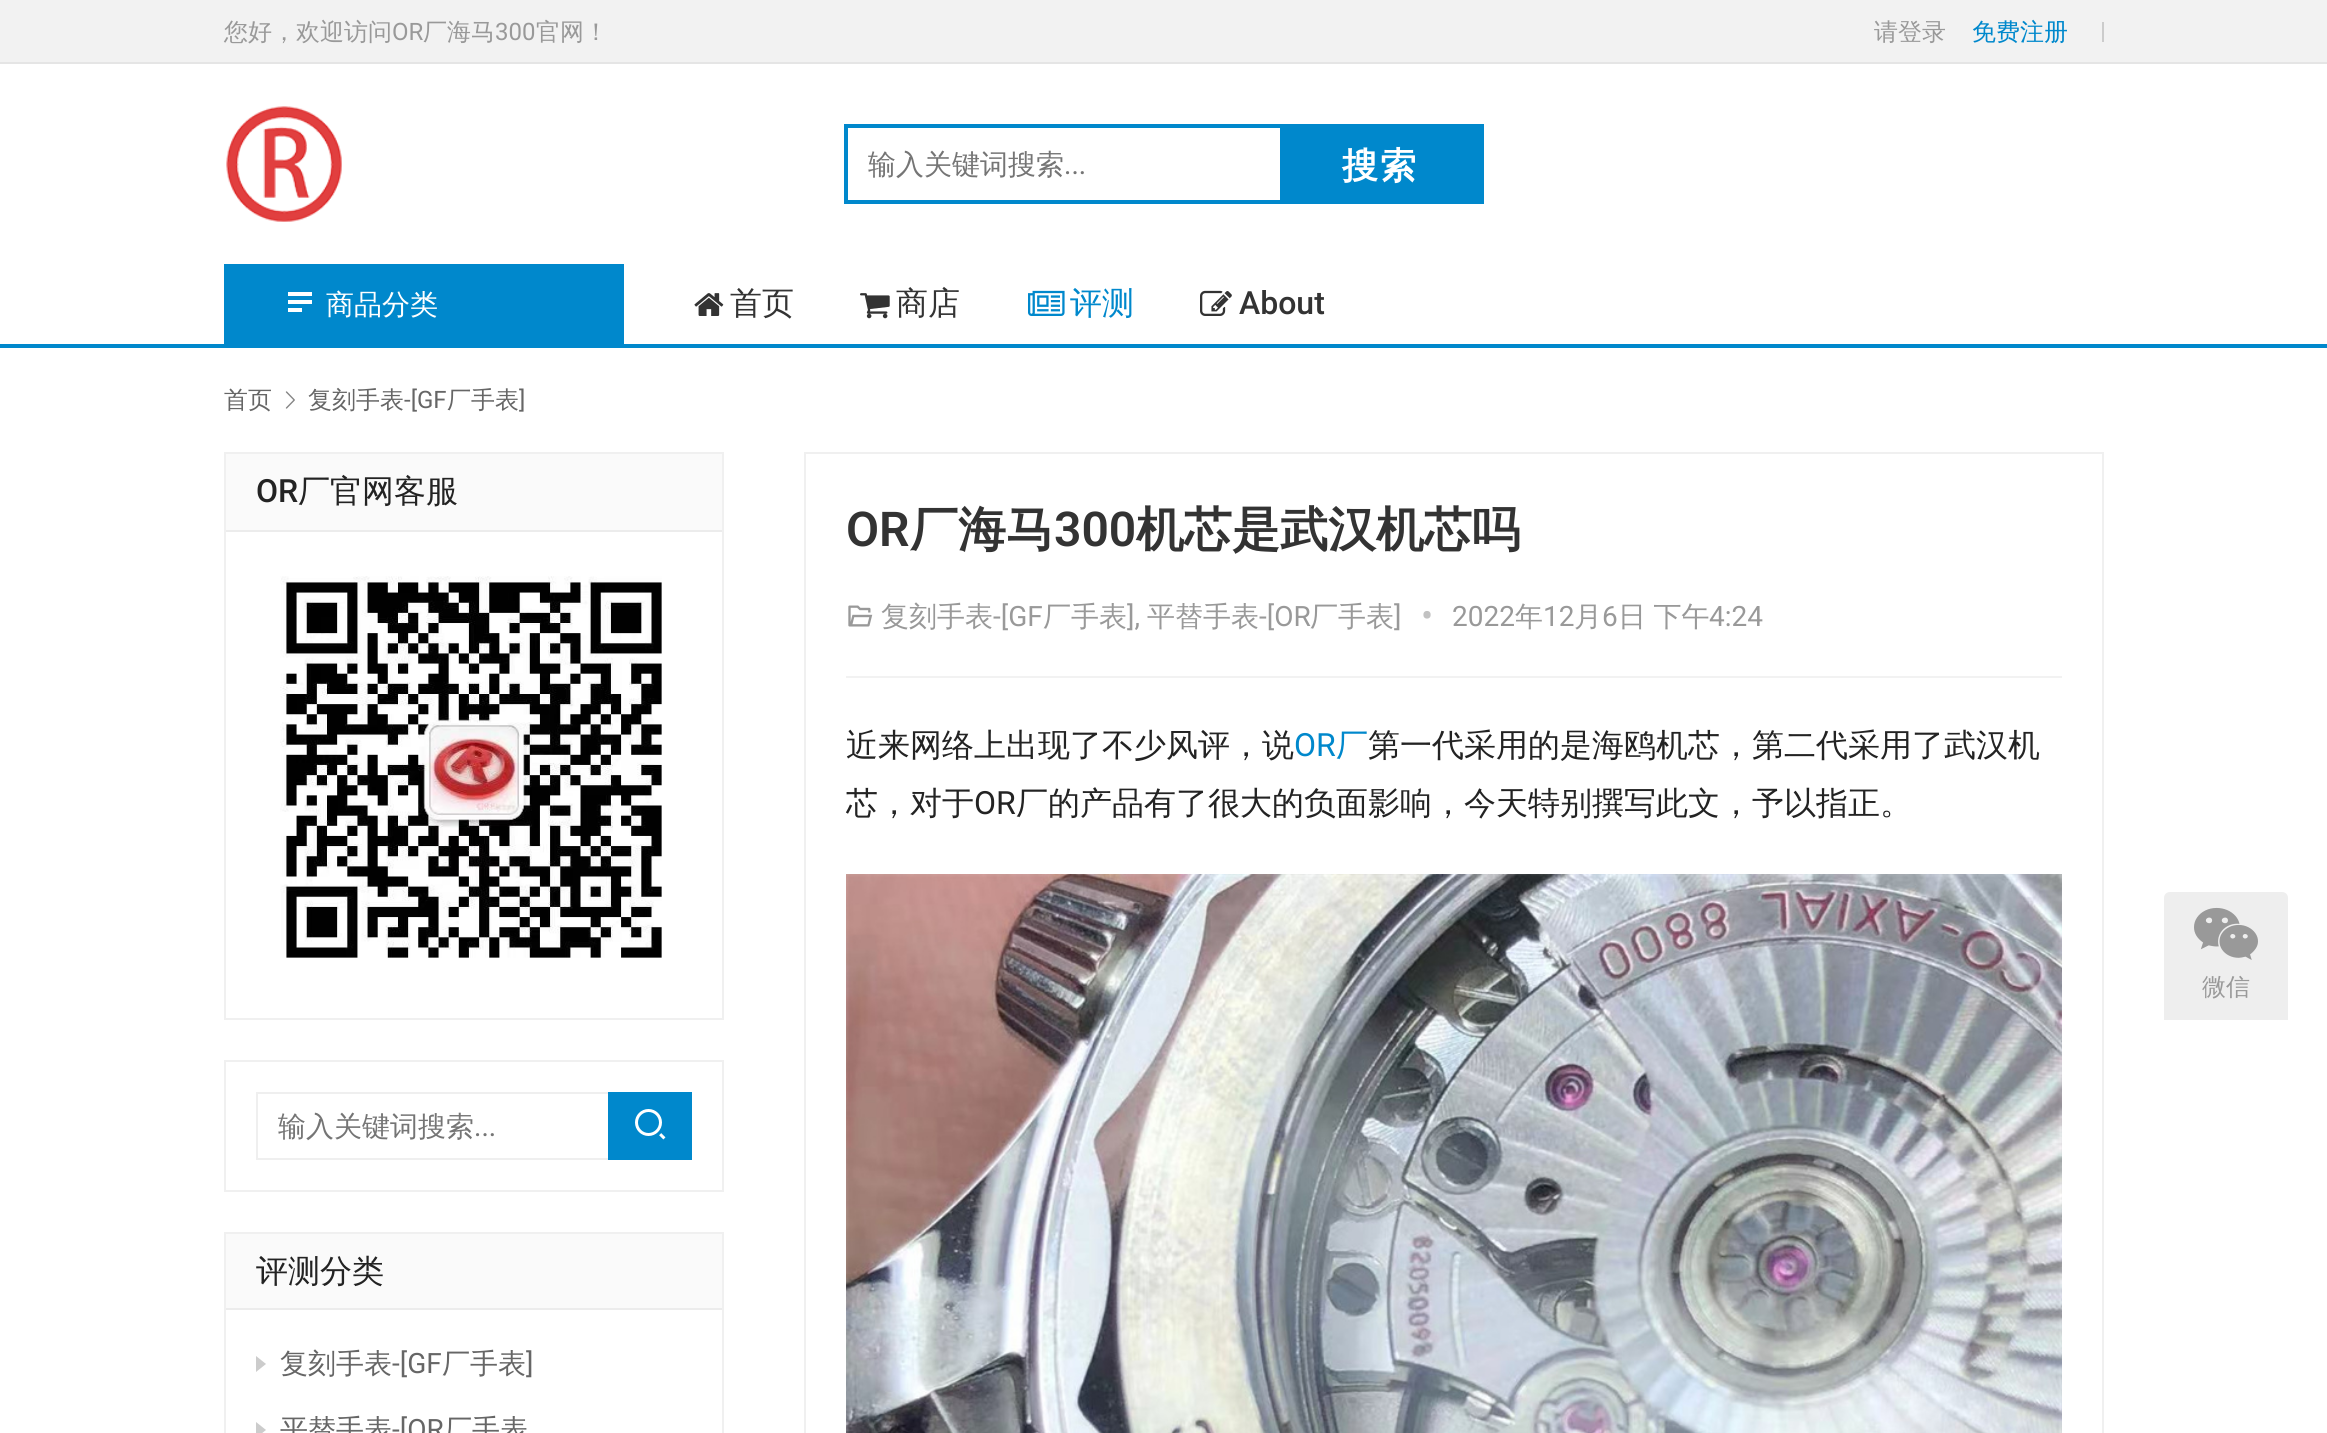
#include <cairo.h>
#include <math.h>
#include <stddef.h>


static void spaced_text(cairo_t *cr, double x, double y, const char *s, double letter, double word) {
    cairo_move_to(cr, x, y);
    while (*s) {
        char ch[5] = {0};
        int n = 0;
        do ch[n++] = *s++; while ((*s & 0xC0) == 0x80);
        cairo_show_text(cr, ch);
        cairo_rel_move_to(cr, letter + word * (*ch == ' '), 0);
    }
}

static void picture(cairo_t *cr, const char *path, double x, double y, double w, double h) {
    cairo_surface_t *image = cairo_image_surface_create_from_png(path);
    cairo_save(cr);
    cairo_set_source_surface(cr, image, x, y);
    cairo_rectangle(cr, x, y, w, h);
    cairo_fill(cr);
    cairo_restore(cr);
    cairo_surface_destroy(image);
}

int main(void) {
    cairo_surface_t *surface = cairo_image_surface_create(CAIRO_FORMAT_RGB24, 2327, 1433);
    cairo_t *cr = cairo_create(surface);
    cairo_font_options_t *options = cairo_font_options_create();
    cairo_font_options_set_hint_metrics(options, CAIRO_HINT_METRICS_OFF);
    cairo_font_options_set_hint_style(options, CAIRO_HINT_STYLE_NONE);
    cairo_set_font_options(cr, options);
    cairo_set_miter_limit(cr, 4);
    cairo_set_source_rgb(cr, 1, 1, 1);
    cairo_paint(cr);
    cairo_set_source_rgb(cr, 0, 0.533, 0.8);
    cairo_rectangle(cr, 0, 344, 2327, 4);
    cairo_fill(cr);
    cairo_set_source_rgb(cr, 0.949, 0.949, 0.949);
    cairo_rectangle(cr, 0, 0, 2327, 62);
    cairo_fill(cr);
    cairo_set_source_rgb(cr, 0.898, 0.898, 0.898);
    cairo_rectangle(cr, 0, 62, 2327, 2);
    cairo_fill(cr);
    cairo_select_font_face(cr, "WenQuanYi Zen Hei Medium", CAIRO_FONT_SLANT_NORMAL, CAIRO_FONT_WEIGHT_NORMAL);
    cairo_set_font_size(cr, 24);
    cairo_set_source_rgb(cr, 0.6, 0.6, 0.6);
    cairo_move_to(cr, 224, 40);
    cairo_show_text(cr, "您好，欢迎访问");
    cairo_select_font_face(cr, "Roboto", CAIRO_FONT_SLANT_NORMAL, CAIRO_FONT_WEIGHT_NORMAL);
    cairo_move_to(cr, 392, 40);
    cairo_show_text(cr, "OR");
    cairo_select_font_face(cr, "WenQuanYi Zen Hei Medium", CAIRO_FONT_SLANT_NORMAL, CAIRO_FONT_WEIGHT_NORMAL);
    cairo_move_to(cr, 423, 40);
    cairo_show_text(cr, "厂海马");
    cairo_select_font_face(cr, "Roboto", CAIRO_FONT_SLANT_NORMAL, CAIRO_FONT_WEIGHT_NORMAL);
    cairo_move_to(cr, 495, 40);
    cairo_show_text(cr, "300");
    cairo_select_font_face(cr, "WenQuanYi Zen Hei Medium", CAIRO_FONT_SLANT_NORMAL, CAIRO_FONT_WEIGHT_NORMAL);
    cairo_move_to(cr, 536, 40);
    cairo_show_text(cr, "官网！");
    cairo_move_to(cr, 1874, 40);
    cairo_show_text(cr, "请登录");
    cairo_set_source_rgb(cr, 0, 0.533, 0.8);
    cairo_move_to(cr, 1972, 40);
    cairo_show_text(cr, "免费注册");
    cairo_set_source_rgb(cr, 0.8, 0.8, 0.8);
    cairo_rectangle(cr, 2102, 22, 2, 20);
    cairo_fill(cr);
    picture(cr, "img1.png", 226, 106, 116, 116);
    cairo_rectangle(cr, 846, 126, 636, 76);
    cairo_set_source_rgb(cr, 0, 0.533, 0.8);
    cairo_set_line_width(cr, 4);
    cairo_stroke(cr);
    cairo_set_font_size(cr, 28);
    cairo_set_source_rgb(cr, 0.459, 0.459, 0.459);
    cairo_move_to(cr, 868, 174);
    cairo_show_text(cr, "输入关键词搜索");
    cairo_select_font_face(cr, "Roboto", CAIRO_FONT_SLANT_NORMAL, CAIRO_FONT_WEIGHT_NORMAL);
    cairo_move_to(cr, 1064, 174);
    cairo_show_text(cr, "...");
    cairo_set_source_rgb(cr, 0, 0.533, 0.8);
    cairo_rectangle(cr, 1280, 128, 200, 72);
    cairo_fill(cr);
    cairo_select_font_face(cr, "WenQuanYi Zen Hei", CAIRO_FONT_SLANT_NORMAL, CAIRO_FONT_WEIGHT_BOLD);
    cairo_set_font_size(cr, 36);
    cairo_set_source_rgb(cr, 1, 1, 1);
    spaced_text(cr, 1342, 178, "搜索", 2, 0);
    cairo_set_source_rgb(cr, 0, 0.533, 0.8);
    cairo_rectangle(cr, 224, 264, 400, 80);
    cairo_fill(cr);
    picture(cr, "img2.png", 288, 292, 24, 20);
    cairo_select_font_face(cr, "WenQuanYi Zen Hei Medium", CAIRO_FONT_SLANT_NORMAL, CAIRO_FONT_WEIGHT_NORMAL);
    cairo_set_font_size(cr, 28);
    cairo_set_source_rgb(cr, 1, 1, 1);
    cairo_move_to(cr, 326, 314);
    cairo_show_text(cr, "商品分类");
    picture(cr, "img3.png", 694, 293, 30, 23);
    cairo_set_font_size(cr, 32);
    cairo_set_source_rgb(cr, 0.2, 0.2, 0.2);
    cairo_move_to(cr, 730, 314);
    cairo_show_text(cr, "首页");
    picture(cr, "img4.png", 860, 293, 30, 26);
    cairo_move_to(cr, 896, 314);
    cairo_show_text(cr, "商店");
    picture(cr, "img5.png", 1028, 290, 37, 26);
    cairo_set_source_rgb(cr, 0, 0.533, 0.8);
    cairo_move_to(cr, 1070, 314);
    cairo_show_text(cr, "评测");
    picture(cr, "img6.png", 1200, 290, 32, 26);
    cairo_select_font_face(cr, "Roboto Medium", CAIRO_FONT_SLANT_NORMAL, CAIRO_FONT_WEIGHT_NORMAL);
    cairo_set_source_rgb(cr, 0.2, 0.2, 0.2);
    cairo_move_to(cr, 1239, 314);
    cairo_show_text(cr, "About");
    cairo_select_font_face(cr, "WenQuanYi Zen Hei Medium", CAIRO_FONT_SLANT_NORMAL, CAIRO_FONT_WEIGHT_NORMAL);
    cairo_set_font_size(cr, 24);
    cairo_set_source_rgb(cr, 0.4, 0.4, 0.4);
    cairo_move_to(cr, 224, 408);
    cairo_show_text(cr, "首页");
    picture(cr, "img7.png", 285, 391, 10, 18);
    cairo_move_to(cr, 308, 408);
    cairo_show_text(cr, "复刻手表");
    cairo_select_font_face(cr, "Roboto", CAIRO_FONT_SLANT_NORMAL, CAIRO_FONT_WEIGHT_NORMAL);
    cairo_move_to(cr, 404, 408);
    cairo_show_text(cr, "-[GF");
    cairo_select_font_face(cr, "WenQuanYi Zen Hei Medium", CAIRO_FONT_SLANT_NORMAL, CAIRO_FONT_WEIGHT_NORMAL);
    cairo_move_to(cr, 447, 408);
    cairo_show_text(cr, "厂手表");
    cairo_select_font_face(cr, "Roboto", CAIRO_FONT_SLANT_NORMAL, CAIRO_FONT_WEIGHT_NORMAL);
    cairo_move_to(cr, 519, 408);
    cairo_show_text(cr, "]");
    cairo_rectangle(cr, 225, 453, 498, 566);
    cairo_set_source_rgb(cr, 0.941, 0.941, 0.941);
    cairo_set_line_width(cr, 2);
    cairo_stroke(cr);
    cairo_set_source_rgb(cr, 0.98, 0.98, 0.98);
    cairo_rectangle(cr, 226, 454, 496, 76);
    cairo_fill(cr);
    cairo_set_source_rgb(cr, 0.922, 0.922, 0.922);
    cairo_rectangle(cr, 226, 530, 496, 2);
    cairo_fill(cr);
    cairo_select_font_face(cr, "Roboto Medium", CAIRO_FONT_SLANT_NORMAL, CAIRO_FONT_WEIGHT_NORMAL);
    cairo_set_font_size(cr, 32);
    cairo_set_source_rgb(cr, 0.137, 0.137, 0.137);
    cairo_move_to(cr, 256, 502);
    cairo_show_text(cr, "OR");
    cairo_select_font_face(cr, "WenQuanYi Zen Hei Medium", CAIRO_FONT_SLANT_NORMAL, CAIRO_FONT_WEIGHT_NORMAL);
    cairo_move_to(cr, 298, 502);
    cairo_show_text(cr, "厂官网客服");
    picture(cr, "img8.png", 280, 576, 382, 382);
    cairo_rectangle(cr, 225, 1061, 498, 130);
    cairo_set_source_rgb(cr, 0.941, 0.941, 0.941);
    cairo_stroke(cr);
    cairo_rectangle(cr, 257, 1093, 434, 66);
    cairo_set_source_rgb(cr, 0.937, 0.937, 0.937);
    cairo_stroke(cr);
    cairo_set_font_size(cr, 28);
    cairo_set_source_rgb(cr, 0.459, 0.459, 0.459);
    cairo_move_to(cr, 278, 1136);
    cairo_show_text(cr, "输入关键词搜索");
    cairo_select_font_face(cr, "Roboto", CAIRO_FONT_SLANT_NORMAL, CAIRO_FONT_WEIGHT_NORMAL);
    cairo_move_to(cr, 474, 1136);
    cairo_show_text(cr, "...");
    cairo_set_source_rgb(cr, 0, 0.533, 0.8);
    cairo_rectangle(cr, 608, 1092, 84, 68);
    cairo_fill(cr);
    picture(cr, "img9.png", 635, 1109, 31, 31);
    cairo_rectangle(cr, 225, 1233, 498, 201);
    cairo_set_source_rgb(cr, 0.941, 0.941, 0.941);
    cairo_stroke(cr);
    cairo_set_source_rgb(cr, 0.98, 0.98, 0.98);
    cairo_rectangle(cr, 226, 1234, 496, 74);
    cairo_fill(cr);
    cairo_set_source_rgb(cr, 0.922, 0.922, 0.922);
    cairo_rectangle(cr, 226, 1308, 496, 2);
    cairo_fill(cr);
    cairo_select_font_face(cr, "WenQuanYi Zen Hei Medium", CAIRO_FONT_SLANT_NORMAL, CAIRO_FONT_WEIGHT_NORMAL);
    cairo_set_font_size(cr, 32);
    cairo_set_source_rgb(cr, 0.137, 0.137, 0.137);
    cairo_move_to(cr, 256, 1282);
    cairo_show_text(cr, "评测分类");
    cairo_set_source_rgb(cr, 0.8, 0.8, 0.8);
    cairo_new_path(cr);
    cairo_move_to(cr, 256, 1372);
    cairo_line_to(cr, 256, 1356);
    cairo_line_to(cr, 266, 1364);
    cairo_close_path(cr);
    cairo_fill(cr);
    cairo_set_font_size(cr, 28);
    cairo_set_source_rgb(cr, 0.4, 0.4, 0.4);
    cairo_move_to(cr, 280, 1373);
    cairo_show_text(cr, "复刻手表");
    cairo_select_font_face(cr, "Roboto", CAIRO_FONT_SLANT_NORMAL, CAIRO_FONT_WEIGHT_NORMAL);
    cairo_move_to(cr, 392, 1373);
    cairo_show_text(cr, "-[GF");
    cairo_select_font_face(cr, "WenQuanYi Zen Hei Medium", CAIRO_FONT_SLANT_NORMAL, CAIRO_FONT_WEIGHT_NORMAL);
    cairo_move_to(cr, 442, 1373);
    cairo_show_text(cr, "厂手表");
    cairo_select_font_face(cr, "Roboto", CAIRO_FONT_SLANT_NORMAL, CAIRO_FONT_WEIGHT_NORMAL);
    cairo_move_to(cr, 526, 1373);
    cairo_show_text(cr, "]");
    cairo_set_source_rgb(cr, 0.8, 0.8, 0.8);
    cairo_new_path(cr);
    cairo_move_to(cr, 256, 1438);
    cairo_line_to(cr, 256, 1422);
    cairo_line_to(cr, 266, 1430);
    cairo_close_path(cr);
    cairo_fill(cr);
    cairo_select_font_face(cr, "WenQuanYi Zen Hei Medium", CAIRO_FONT_SLANT_NORMAL, CAIRO_FONT_WEIGHT_NORMAL);
    cairo_set_source_rgb(cr, 0.4, 0.4, 0.4);
    cairo_move_to(cr, 280, 1439);
    cairo_show_text(cr, "平替手表");
    cairo_select_font_face(cr, "Roboto", CAIRO_FONT_SLANT_NORMAL, CAIRO_FONT_WEIGHT_NORMAL);
    cairo_move_to(cr, 392, 1439);
    cairo_show_text(cr, "-[OR");
    cairo_select_font_face(cr, "WenQuanYi Zen Hei Medium", CAIRO_FONT_SLANT_NORMAL, CAIRO_FONT_WEIGHT_NORMAL);
    cairo_move_to(cr, 444, 1439);
    cairo_show_text(cr, "厂手表");
    cairo_rectangle(cr, 805, 453, 1298, 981);
    cairo_set_source_rgb(cr, 0.941, 0.941, 0.941);
    cairo_stroke(cr);
    cairo_set_source_rgb(cr, 0.949, 0.949, 0.949);
    cairo_rectangle(cr, 846, 676, 1216, 2);
    cairo_fill(cr);
    cairo_select_font_face(cr, "Roboto SemiBold", CAIRO_FONT_SLANT_NORMAL, CAIRO_FONT_WEIGHT_NORMAL);
    cairo_set_font_size(cr, 48);
    cairo_set_source_rgb(cr, 0.2, 0.2, 0.2);
    cairo_move_to(cr, 846, 546);
    cairo_show_text(cr, "OR");
    cairo_select_font_face(cr, "WenQuanYi Zen Hei", CAIRO_FONT_SLANT_NORMAL, CAIRO_FONT_WEIGHT_BOLD);
    cairo_move_to(cr, 910, 546);
    cairo_show_text(cr, "厂海马");
    cairo_select_font_face(cr, "Roboto SemiBold", CAIRO_FONT_SLANT_NORMAL, CAIRO_FONT_WEIGHT_NORMAL);
    cairo_move_to(cr, 1054, 546);
    cairo_show_text(cr, "300");
    cairo_select_font_face(cr, "WenQuanYi Zen Hei", CAIRO_FONT_SLANT_NORMAL, CAIRO_FONT_WEIGHT_BOLD);
    cairo_move_to(cr, 1136, 546);
    cairo_show_text(cr, "机芯是武汉机芯吗");
    picture(cr, "img10.png", 848, 605, 25, 22);
    cairo_select_font_face(cr, "WenQuanYi Zen Hei Medium", CAIRO_FONT_SLANT_NORMAL, CAIRO_FONT_WEIGHT_NORMAL);
    cairo_set_font_size(cr, 28);
    cairo_set_source_rgb(cr, 0.6, 0.6, 0.6);
    cairo_move_to(cr, 881, 626);
    cairo_show_text(cr, "复刻手表");
    cairo_select_font_face(cr, "Roboto", CAIRO_FONT_SLANT_NORMAL, CAIRO_FONT_WEIGHT_NORMAL);
    cairo_move_to(cr, 993, 626);
    cairo_show_text(cr, "-[GF");
    cairo_select_font_face(cr, "WenQuanYi Zen Hei Medium", CAIRO_FONT_SLANT_NORMAL, CAIRO_FONT_WEIGHT_NORMAL);
    cairo_move_to(cr, 1043, 626);
    cairo_show_text(cr, "厂手表");
    cairo_select_font_face(cr, "Roboto", CAIRO_FONT_SLANT_NORMAL, CAIRO_FONT_WEIGHT_NORMAL);
    cairo_move_to(cr, 1127, 626);
    cairo_show_text(cr, "],");
    cairo_select_font_face(cr, "WenQuanYi Zen Hei Medium", CAIRO_FONT_SLANT_NORMAL, CAIRO_FONT_WEIGHT_NORMAL);
    cairo_move_to(cr, 1147, 626);
    cairo_show_text(cr, "平替手表");
    cairo_select_font_face(cr, "Roboto", CAIRO_FONT_SLANT_NORMAL, CAIRO_FONT_WEIGHT_NORMAL);
    cairo_move_to(cr, 1259, 626);
    cairo_show_text(cr, "-[OR");
    cairo_select_font_face(cr, "WenQuanYi Zen Hei Medium", CAIRO_FONT_SLANT_NORMAL, CAIRO_FONT_WEIGHT_NORMAL);
    cairo_move_to(cr, 1310, 626);
    cairo_show_text(cr, "厂手表");
    cairo_select_font_face(cr, "Roboto", CAIRO_FONT_SLANT_NORMAL, CAIRO_FONT_WEIGHT_NORMAL);
    cairo_move_to(cr, 1394, 626);
    cairo_show_text(cr, "]");
    cairo_set_font_size(cr, 36);
    cairo_set_source_rgb(cr, 0.761, 0.761, 0.761);
    cairo_move_to(cr, 1421, 628);
    cairo_show_text(cr, "•");
    cairo_set_font_size(cr, 28);
    cairo_set_source_rgb(cr, 0.6, 0.6, 0.6);
    cairo_move_to(cr, 1452, 626);
    cairo_show_text(cr, "2022");
    cairo_select_font_face(cr, "WenQuanYi Zen Hei Medium", CAIRO_FONT_SLANT_NORMAL, CAIRO_FONT_WEIGHT_NORMAL);
    cairo_move_to(cr, 1515, 626);
    cairo_show_text(cr, "年");
    cairo_select_font_face(cr, "Roboto", CAIRO_FONT_SLANT_NORMAL, CAIRO_FONT_WEIGHT_NORMAL);
    cairo_move_to(cr, 1543, 626);
    cairo_show_text(cr, "12");
    cairo_select_font_face(cr, "WenQuanYi Zen Hei Medium", CAIRO_FONT_SLANT_NORMAL, CAIRO_FONT_WEIGHT_NORMAL);
    cairo_move_to(cr, 1574, 626);
    cairo_show_text(cr, "月");
    cairo_select_font_face(cr, "Roboto", CAIRO_FONT_SLANT_NORMAL, CAIRO_FONT_WEIGHT_NORMAL);
    cairo_move_to(cr, 1602, 626);
    cairo_show_text(cr, "6");
    cairo_select_font_face(cr, "WenQuanYi Zen Hei Medium", CAIRO_FONT_SLANT_NORMAL, CAIRO_FONT_WEIGHT_NORMAL);
    spaced_text(cr, 1618, 626, "日 下午", 0, -1);
    cairo_select_font_face(cr, "Roboto", CAIRO_FONT_SLANT_NORMAL, CAIRO_FONT_WEIGHT_NORMAL);
    cairo_move_to(cr, 1709, 626);
    cairo_show_text(cr, "4:24");
    cairo_select_font_face(cr, "WenQuanYi Zen Hei Medium", CAIRO_FONT_SLANT_NORMAL, CAIRO_FONT_WEIGHT_NORMAL);
    cairo_set_font_size(cr, 32);
    cairo_set_source_rgb(cr, 0.137, 0.137, 0.137);
    cairo_move_to(cr, 846, 756);
    cairo_show_text(cr, "近来网络上出现了不少风评，说");
    cairo_select_font_face(cr, "Roboto", CAIRO_FONT_SLANT_NORMAL, CAIRO_FONT_WEIGHT_NORMAL);
    cairo_set_source_rgb(cr, 0, 0.533, 0.8);
    cairo_move_to(cr, 1294, 756);
    cairo_show_text(cr, "OR");
    cairo_select_font_face(cr, "WenQuanYi Zen Hei Medium", CAIRO_FONT_SLANT_NORMAL, CAIRO_FONT_WEIGHT_NORMAL);
    cairo_move_to(cr, 1336, 756);
    cairo_show_text(cr, "厂");
    cairo_set_source_rgb(cr, 0.137, 0.137, 0.137);
    cairo_move_to(cr, 1368, 756);
    cairo_show_text(cr, "第一代采用的是海鸥机芯，第二代采用了武汉机");
    cairo_move_to(cr, 846, 814);
    cairo_show_text(cr, "芯，对于");
    cairo_select_font_face(cr, "Roboto", CAIRO_FONT_SLANT_NORMAL, CAIRO_FONT_WEIGHT_NORMAL);
    cairo_move_to(cr, 974, 814);
    cairo_show_text(cr, "OR");
    cairo_select_font_face(cr, "WenQuanYi Zen Hei Medium", CAIRO_FONT_SLANT_NORMAL, CAIRO_FONT_WEIGHT_NORMAL);
    cairo_move_to(cr, 1016, 814);
    cairo_show_text(cr, "厂的产品有了很大的负面影响，今天特别撰写此文，予以指正。");
    picture(cr, "img11.png", 846, 874, 1216, 559);
    cairo_set_source_rgb(cr, 0.933, 0.933, 0.933);
    cairo_new_path(cr);
    cairo_move_to(cr, 2170, 892);
    cairo_line_to(cr, 2282, 892);
    cairo_curve_to(cr, 2285.5, 892, 2288, 894.5, 2288, 898);
    cairo_line_to(cr, 2288, 1020);
    cairo_line_to(cr, 2164, 1020);
    cairo_line_to(cr, 2164, 898);
    cairo_curve_to(cr, 2164, 894.5, 2166.5, 892, 2170, 892);
    cairo_close_path(cr);
    cairo_fill(cr);
    picture(cr, "img12.png", 2194, 907, 64, 53);
    cairo_set_font_size(cr, 24);
    cairo_set_source_rgb(cr, 0.6, 0.6, 0.6);
    cairo_move_to(cr, 2202, 995);
    cairo_show_text(cr, "微信");
    cairo_surface_write_to_png(surface, "page.png");
    cairo_font_options_destroy(options);
    cairo_destroy(cr);
    cairo_surface_destroy(surface);
    return 0;
}
